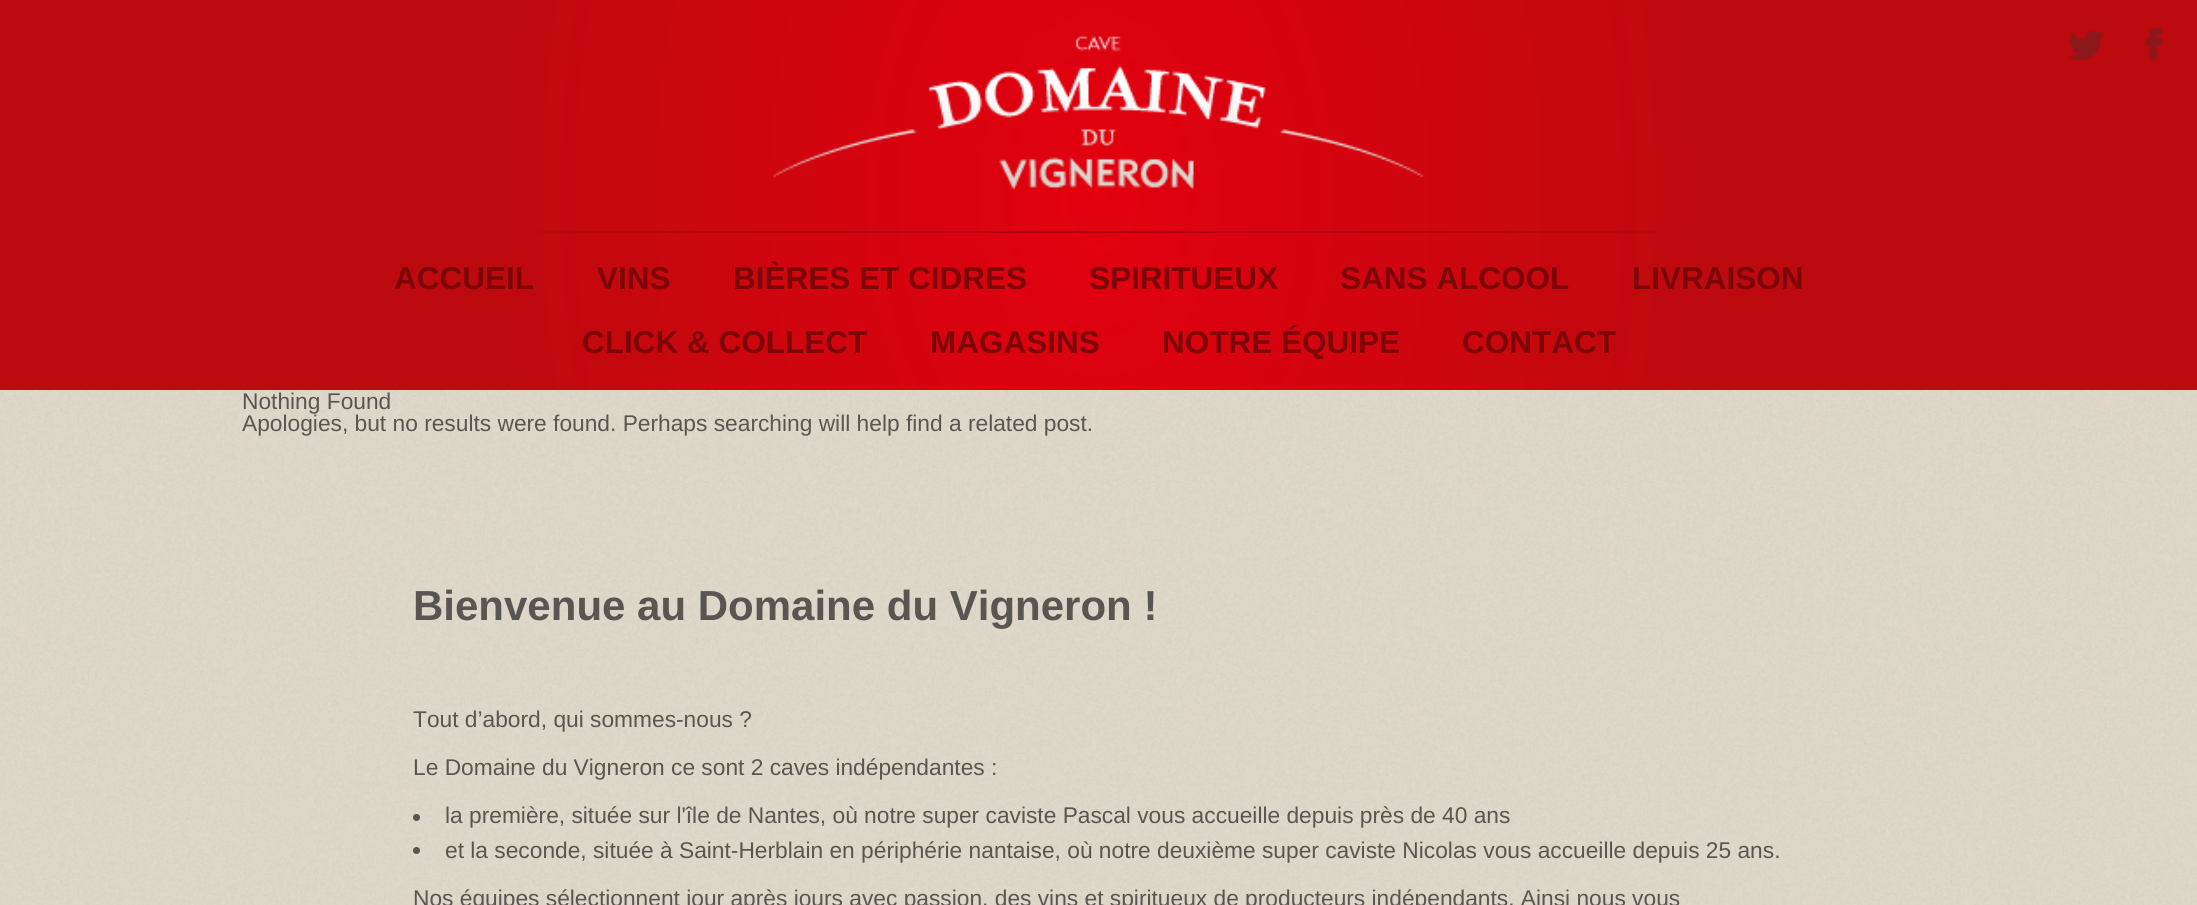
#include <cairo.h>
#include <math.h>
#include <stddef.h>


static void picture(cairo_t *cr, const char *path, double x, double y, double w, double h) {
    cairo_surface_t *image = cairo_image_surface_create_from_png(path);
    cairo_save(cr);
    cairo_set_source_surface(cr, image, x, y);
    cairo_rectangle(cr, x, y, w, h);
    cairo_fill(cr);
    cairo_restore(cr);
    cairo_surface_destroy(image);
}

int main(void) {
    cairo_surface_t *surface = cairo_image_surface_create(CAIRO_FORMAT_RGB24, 2197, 905);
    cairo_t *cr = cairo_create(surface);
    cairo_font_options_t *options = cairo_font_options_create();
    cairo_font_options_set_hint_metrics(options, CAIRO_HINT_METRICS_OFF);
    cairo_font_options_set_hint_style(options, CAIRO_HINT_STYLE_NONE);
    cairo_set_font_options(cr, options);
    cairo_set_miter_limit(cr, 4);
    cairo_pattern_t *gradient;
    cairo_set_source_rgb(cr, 1, 1, 1);
    cairo_paint(cr);
    picture(cr, "img1.png", 0, 390, 2197, 515);
    gradient = cairo_pattern_create_radial(0, 0, 0, 0, 0, 1);
    cairo_pattern_set_matrix(gradient, &(cairo_matrix_t){1.0 / 630, 0, 0, 1.0 / 945, -1.0 * 1099 / 630, -1.0 * 195 / 945});
    cairo_pattern_add_color_stop_rgba(gradient, 0, 0.89, 0, 0.059, 1);
    cairo_pattern_add_color_stop_rgba(gradient, 1, 0.737, 0.039, 0.055, 1);
    cairo_set_source(cr, gradient);
    cairo_pattern_destroy(gradient);
    cairo_rectangle(cr, 0, 0, 2197, 390);
    cairo_fill(cr);
    picture(cr, "img2.png", 2068, 29, 36, 32);
    picture(cr, "img3.png", 2145, 27, 19, 33);
    picture(cr, "img4.png", 773, 36, 651, 154);
    gradient = cairo_pattern_create_radial(0, 0, 0, 0, 0, 1);
    cairo_pattern_set_matrix(gradient, &(cairo_matrix_t){1.0 / 970, 0, 0, 1.0 / 1.2, -1.0 * 1099 / 970, -1.0 * 232 / 1.2});
    cairo_pattern_add_color_stop_rgba(gradient, 0, 0.478, 0.024, 0.035, 1);
    cairo_pattern_add_color_stop_rgba(gradient, 0.8, 0.478, 0.024, 0.035, 0);
    cairo_set_source(cr, gradient);
    cairo_pattern_destroy(gradient);
    cairo_rectangle(cr, 471, 231, 1256, 2);
    cairo_fill(cr);
    cairo_select_font_face(cr, "Liberation Sans", CAIRO_FONT_SLANT_NORMAL, CAIRO_FONT_WEIGHT_BOLD);
    cairo_set_font_size(cr, 31.5);
    cairo_set_source_rgb(cr, 0.478, 0.024, 0.035);
    cairo_move_to(cr, 394, 289);
    cairo_show_text(cr, "ACCUEIL");
    cairo_move_to(cr, 597, 289);
    cairo_show_text(cr, "VINS");
    cairo_move_to(cr, 733, 289);
    cairo_show_text(cr, "BIÈRES ET CIDRES");
    cairo_move_to(cr, 1089, 289);
    cairo_show_text(cr, "SPIRITUEUX");
    cairo_move_to(cr, 1340, 289);
    cairo_show_text(cr, "SANS ALCOOL");
    cairo_move_to(cr, 1632, 289);
    cairo_show_text(cr, "LIVRAISON");
    cairo_move_to(cr, 582, 353);
    cairo_show_text(cr, "CLICK & COLLECT");
    cairo_move_to(cr, 930, 353);
    cairo_show_text(cr, "MAGASINS");
    cairo_move_to(cr, 1162, 353);
    cairo_show_text(cr, "NOTRE ÉQUIPE");
    cairo_move_to(cr, 1462, 353);
    cairo_show_text(cr, "CONTACT");
    cairo_select_font_face(cr, "Liberation Sans", CAIRO_FONT_SLANT_NORMAL, CAIRO_FONT_WEIGHT_NORMAL);
    cairo_set_font_size(cr, 22.75);
    cairo_set_source_rgb(cr, 0.349, 0.333, 0.314);
    cairo_move_to(cr, 242, 409);
    cairo_show_text(cr, "Nothing Found");
    cairo_move_to(cr, 242, 431);
    cairo_show_text(cr, "Apologies, but no results were found. Perhaps searching will help find a related post.");
    cairo_select_font_face(cr, "Liberation Sans", CAIRO_FONT_SLANT_NORMAL, CAIRO_FONT_WEIGHT_BOLD);
    cairo_set_font_size(cr, 42);
    cairo_move_to(cr, 413, 620);
    cairo_show_text(cr, "Bienvenue au Domaine du Vigneron !");
    cairo_select_font_face(cr, "Liberation Sans", CAIRO_FONT_SLANT_NORMAL, CAIRO_FONT_WEIGHT_NORMAL);
    cairo_set_font_size(cr, 22.75);
    cairo_move_to(cr, 413, 727);
    cairo_show_text(cr, "Tout d’abord, qui sommes-nous ?");
    cairo_move_to(cr, 413, 775);
    cairo_show_text(cr, "Le Domaine du Vigneron ce sont 2 caves indépendantes :");
    cairo_new_path(cr);
    cairo_arc(cr, 416.5, 817.5, 3.5, 0, 2 * M_PI);
    cairo_fill(cr);
    cairo_move_to(cr, 445, 823);
    cairo_show_text(cr, "la première, située sur l'île de Nantes, où notre super caviste Pascal vous accueille depuis près de 40 ans");
    cairo_new_path(cr);
    cairo_arc(cr, 416.5, 850.5, 3.5, 0, 2 * M_PI);
    cairo_fill(cr);
    cairo_move_to(cr, 445, 858);
    cairo_show_text(cr, "et la seconde, située à Saint-Herblain en périphérie nantaise, où notre deuxième super caviste Nicolas vous accueille depuis 25 ans.");
    cairo_move_to(cr, 413, 906);
    cairo_show_text(cr, "Nos équipes sélectionnent jour après jours avec passion, des vins et spiritueux de producteurs indépendants. Ainsi nous vous");
    cairo_surface_write_to_png(surface, "page.png");
    cairo_font_options_destroy(options);
    cairo_destroy(cr);
    cairo_surface_destroy(surface);
    return 0;
}
